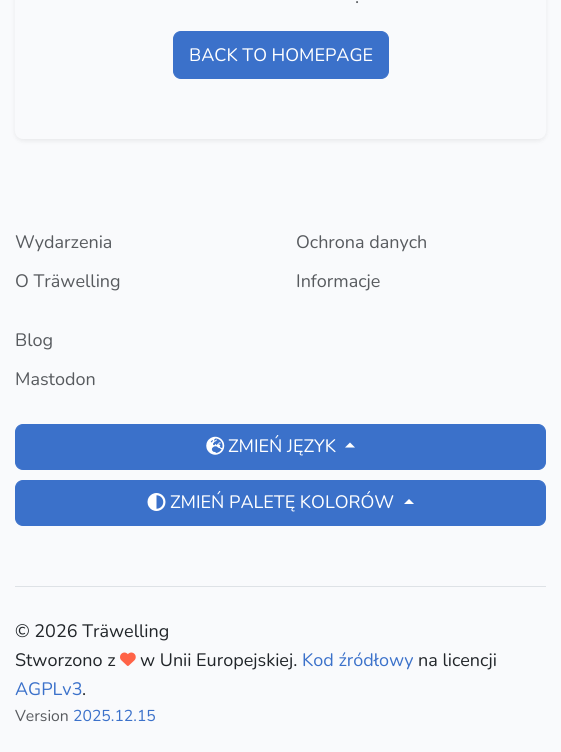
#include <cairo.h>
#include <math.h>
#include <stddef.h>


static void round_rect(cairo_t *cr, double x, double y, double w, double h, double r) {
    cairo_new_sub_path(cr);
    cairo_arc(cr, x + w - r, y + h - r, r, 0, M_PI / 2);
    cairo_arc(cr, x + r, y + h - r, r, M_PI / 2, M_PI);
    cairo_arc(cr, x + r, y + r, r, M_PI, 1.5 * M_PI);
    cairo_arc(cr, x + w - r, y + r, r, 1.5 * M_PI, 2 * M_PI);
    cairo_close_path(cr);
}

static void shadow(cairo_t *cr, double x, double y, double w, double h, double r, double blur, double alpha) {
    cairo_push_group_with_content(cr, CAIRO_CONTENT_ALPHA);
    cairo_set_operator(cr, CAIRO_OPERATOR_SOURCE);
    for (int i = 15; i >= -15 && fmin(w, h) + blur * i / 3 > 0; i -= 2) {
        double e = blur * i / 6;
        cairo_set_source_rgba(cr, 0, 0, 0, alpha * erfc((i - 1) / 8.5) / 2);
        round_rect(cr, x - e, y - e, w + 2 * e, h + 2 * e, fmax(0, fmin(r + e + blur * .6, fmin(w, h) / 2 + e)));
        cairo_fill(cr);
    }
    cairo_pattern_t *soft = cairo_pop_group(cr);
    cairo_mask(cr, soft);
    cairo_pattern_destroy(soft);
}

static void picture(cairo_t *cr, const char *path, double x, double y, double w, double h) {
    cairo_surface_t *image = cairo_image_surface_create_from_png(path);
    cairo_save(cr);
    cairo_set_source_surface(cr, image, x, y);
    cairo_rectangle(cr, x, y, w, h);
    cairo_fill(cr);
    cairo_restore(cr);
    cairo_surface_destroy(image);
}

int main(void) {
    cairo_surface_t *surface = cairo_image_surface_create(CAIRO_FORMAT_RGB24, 561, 752);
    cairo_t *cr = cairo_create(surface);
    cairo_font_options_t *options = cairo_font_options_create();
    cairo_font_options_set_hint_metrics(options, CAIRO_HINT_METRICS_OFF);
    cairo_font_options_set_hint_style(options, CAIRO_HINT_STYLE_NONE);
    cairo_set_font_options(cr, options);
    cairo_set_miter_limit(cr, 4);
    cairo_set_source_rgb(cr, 0.973, 0.98, 0.988);
    cairo_paint(cr);
    cairo_set_source_rgb(cr, 0, 0, 0);
    shadow(cr, 15, -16, 531, 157, 8, 2.5, 0.07);
    cairo_set_source_rgb(cr, 0.973, 0.98, 0.988);
    round_rect(cr, 15, -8, 531, 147, 8);
    cairo_fill(cr);
    cairo_select_font_face(cr, "Nunito", CAIRO_FONT_SLANT_NORMAL, CAIRO_FONT_WEIGHT_NORMAL);
    cairo_set_font_size(cr, 18);
    cairo_set_source_rgb(cr, 0.341, 0.353, 0.369);
    cairo_move_to(cr, 355, 3);
    cairo_show_text(cr, ".");
    cairo_set_source_rgb(cr, 0.231, 0.443, 0.792);
    round_rect(cr, 173.5, 31.5, 215, 47, 7.5);
    cairo_fill_preserve(cr);
    cairo_set_line_width(cr, 1);
    cairo_stroke(cr);
    cairo_set_source_rgb(cr, 1, 1, 1);
    cairo_move_to(cr, 189, 61);
    cairo_show_text(cr, "BACK TO HOMEPAGE");
    cairo_set_source_rgb(cr, 0.341, 0.353, 0.369);
    cairo_move_to(cr, 15, 248);
    cairo_show_text(cr, "Wydarzenia");
    cairo_move_to(cr, 15, 287);
    cairo_show_text(cr, "O Träwelling");
    cairo_move_to(cr, 296, 248);
    cairo_show_text(cr, "Ochrona danych");
    cairo_move_to(cr, 296, 287);
    cairo_show_text(cr, "Informacje");
    cairo_move_to(cr, 15, 346);
    cairo_show_text(cr, "Blog");
    cairo_move_to(cr, 15, 385);
    cairo_show_text(cr, "Mastodon");
    cairo_set_source_rgb(cr, 0.231, 0.443, 0.792);
    round_rect(cr, 15.5, 424.5, 530, 45, 7.5);
    cairo_fill_preserve(cr);
    cairo_stroke(cr);
    picture(cr, "img1.png", 206, 436, 19, 19);
    cairo_set_source_rgb(cr, 1, 1, 1);
    cairo_move_to(cr, 228, 452);
    cairo_show_text(cr, "ZMIEŃ JĘZYK");
    cairo_new_path(cr);
    cairo_move_to(cr, 355, 447.5);
    cairo_line_to(cr, 345, 447.5);
    cairo_line_to(cr, 350, 442.5);
    cairo_close_path(cr);
    cairo_fill(cr);
    cairo_set_source_rgb(cr, 0.231, 0.443, 0.792);
    round_rect(cr, 15.5, 480.5, 530, 45, 7.5);
    cairo_fill_preserve(cr);
    cairo_stroke(cr);
    picture(cr, "img2.png", 147, 493, 19, 18);
    cairo_set_source_rgb(cr, 1, 1, 1);
    cairo_move_to(cr, 170, 508);
    cairo_show_text(cr, "ZMIEŃ PALETĘ KOLORÓW");
    cairo_new_path(cr);
    cairo_move_to(cr, 414, 504);
    cairo_line_to(cr, 404, 504);
    cairo_line_to(cr, 409, 499);
    cairo_close_path(cr);
    cairo_fill(cr);
    cairo_set_source_rgb(cr, 0.871, 0.886, 0.902);
    cairo_rectangle(cr, 15, 586, 531, 1);
    cairo_fill(cr);
    cairo_set_source_rgb(cr, 0.129, 0.145, 0.161);
    cairo_move_to(cr, 15, 637);
    cairo_show_text(cr, "© 2026 Träwelling");
    cairo_move_to(cr, 15, 666);
    cairo_show_text(cr, "Stworzono z");
    picture(cr, "img3.png", 120, 652, 16, 14);
    cairo_move_to(cr, 140, 666);
    cairo_show_text(cr, "w Unii Europejskiej.");
    cairo_set_source_rgb(cr, 0.231, 0.443, 0.792);
    cairo_move_to(cr, 302, 666);
    cairo_show_text(cr, "Kod źródłowy");
    cairo_set_source_rgb(cr, 0.129, 0.145, 0.161);
    cairo_move_to(cr, 418, 666);
    cairo_show_text(cr, "na licencji");
    cairo_set_source_rgb(cr, 0.231, 0.443, 0.792);
    cairo_move_to(cr, 15, 695);
    cairo_show_text(cr, "AGPLv3");
    cairo_set_source_rgb(cr, 0.129, 0.145, 0.161);
    cairo_move_to(cr, 82, 695);
    cairo_show_text(cr, ".");
    cairo_set_font_size(cr, 15.75);
    cairo_set_source_rgb(cr, 0.341, 0.353, 0.369);
    cairo_move_to(cr, 15, 721);
    cairo_show_text(cr, "Version");
    cairo_set_source_rgb(cr, 0.231, 0.443, 0.792);
    cairo_move_to(cr, 73, 721);
    cairo_show_text(cr, "2025.12.15");
    cairo_surface_write_to_png(surface, "page.png");
    cairo_font_options_destroy(options);
    cairo_destroy(cr);
    cairo_surface_destroy(surface);
    return 0;
}
